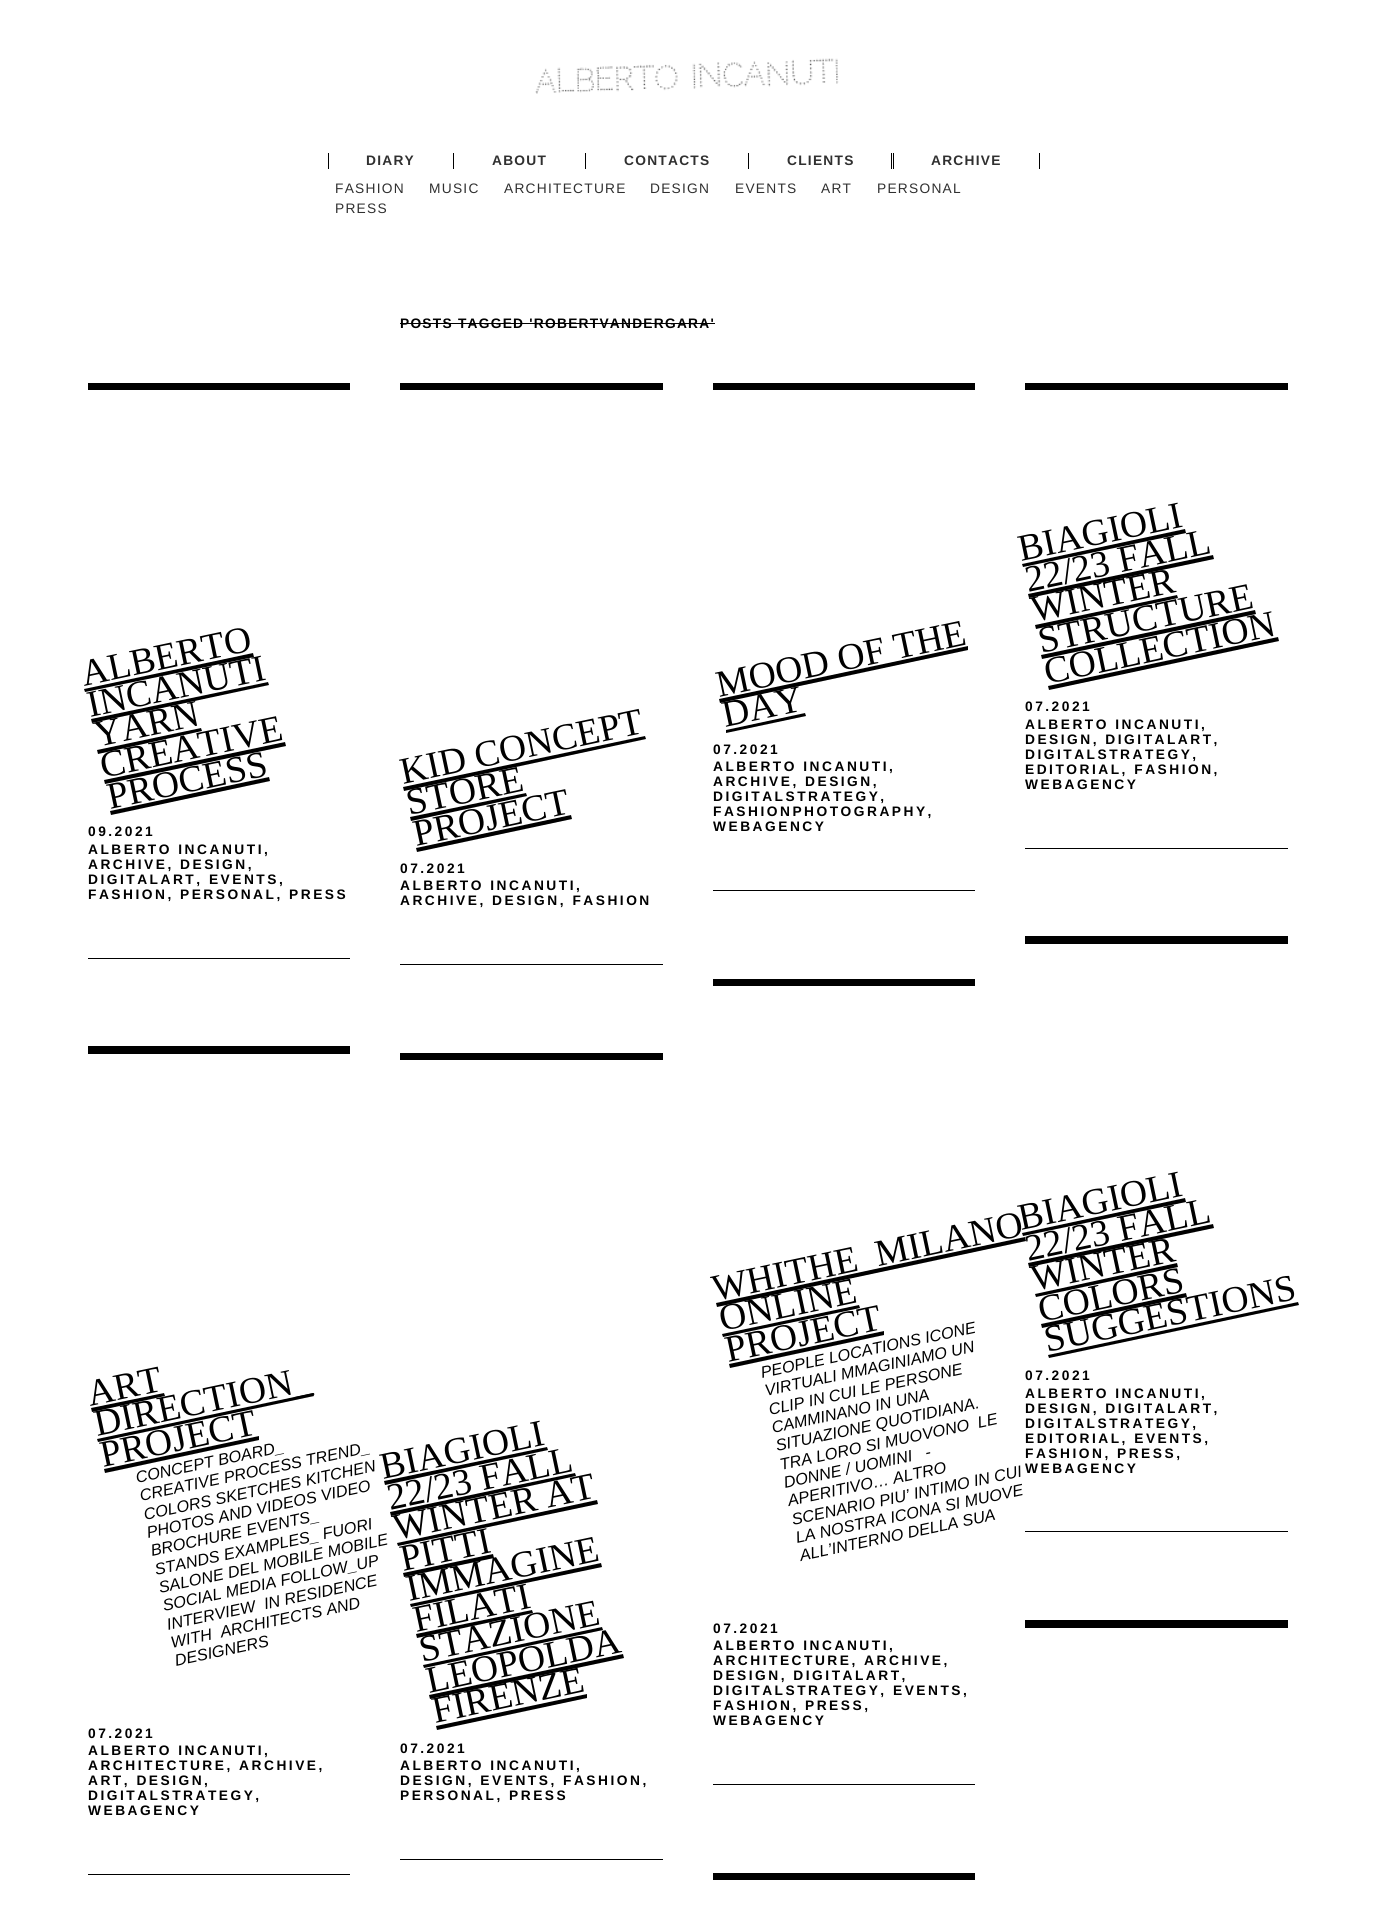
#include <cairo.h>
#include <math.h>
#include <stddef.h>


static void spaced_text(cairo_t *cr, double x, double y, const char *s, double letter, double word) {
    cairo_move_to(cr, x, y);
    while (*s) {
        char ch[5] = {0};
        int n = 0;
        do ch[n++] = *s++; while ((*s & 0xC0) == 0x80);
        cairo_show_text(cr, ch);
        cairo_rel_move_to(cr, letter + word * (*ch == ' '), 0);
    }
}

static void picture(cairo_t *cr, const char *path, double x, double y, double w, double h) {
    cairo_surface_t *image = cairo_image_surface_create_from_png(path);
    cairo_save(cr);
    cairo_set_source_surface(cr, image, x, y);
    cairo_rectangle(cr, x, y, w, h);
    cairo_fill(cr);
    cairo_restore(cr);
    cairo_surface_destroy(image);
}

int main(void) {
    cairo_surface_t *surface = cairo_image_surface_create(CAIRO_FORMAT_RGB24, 1375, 1926);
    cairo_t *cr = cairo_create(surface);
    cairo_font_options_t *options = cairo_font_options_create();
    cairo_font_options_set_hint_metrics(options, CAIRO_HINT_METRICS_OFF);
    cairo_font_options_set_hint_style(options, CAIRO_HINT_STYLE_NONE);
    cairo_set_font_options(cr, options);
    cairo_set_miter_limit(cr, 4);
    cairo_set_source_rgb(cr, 1, 1, 1);
    cairo_paint(cr);
    picture(cr, "img1.png", 535, 58, 304, 36);
    cairo_select_font_face(cr, "Liberation Sans", CAIRO_FONT_SLANT_NORMAL, CAIRO_FONT_WEIGHT_BOLD);
    cairo_set_font_size(cr, 13.75);
    cairo_set_source_rgb(cr, 0.188, 0.188, 0.188);
    spaced_text(cr, 366, 165, "DIARY", 1.25, 0);
    cairo_set_source_rgb(cr, 0, 0, 0);
    cairo_rectangle(cr, 453, 153, 1, 16);
    cairo_fill(cr);
    cairo_rectangle(cr, 328, 153, 1, 16);
    cairo_fill(cr);
    cairo_set_source_rgb(cr, 0.188, 0.188, 0.188);
    spaced_text(cr, 492, 165, "ABOUT", 1.25, 0);
    cairo_set_source_rgb(cr, 0, 0, 0);
    cairo_rectangle(cr, 585, 153, 1, 16);
    cairo_fill(cr);
    cairo_set_source_rgb(cr, 0.188, 0.188, 0.188);
    spaced_text(cr, 624, 165, "CONTACTS", 1.25, 0);
    cairo_set_source_rgb(cr, 0, 0, 0);
    cairo_rectangle(cr, 748, 153, 1, 16);
    cairo_fill(cr);
    cairo_set_source_rgb(cr, 0.188, 0.188, 0.188);
    spaced_text(cr, 787, 165, "CLIENTS", 1.25, 0);
    cairo_set_source_rgb(cr, 0, 0, 0);
    cairo_rectangle(cr, 891, 153, 1, 16);
    cairo_fill(cr);
    cairo_set_source_rgb(cr, 0.188, 0.188, 0.188);
    spaced_text(cr, 931, 165, "ARCHIVE", 1.25, 0);
    cairo_set_source_rgb(cr, 0, 0, 0);
    cairo_rectangle(cr, 1039, 153, 1, 16);
    cairo_fill(cr);
    cairo_rectangle(cr, 893, 153, 1, 16);
    cairo_fill(cr);
    cairo_select_font_face(cr, "Liberation Sans", CAIRO_FONT_SLANT_NORMAL, CAIRO_FONT_WEIGHT_NORMAL);
    cairo_set_source_rgb(cr, 0.188, 0.188, 0.188);
    spaced_text(cr, 335, 193, "FASHION", 1.25, 0);
    spaced_text(cr, 429, 193, "MUSIC", 1.25, 0);
    spaced_text(cr, 504, 193, "ARCHITECTURE", 1.25, 0);
    spaced_text(cr, 650, 193, "DESIGN", 1.25, 0);
    spaced_text(cr, 735, 193, "EVENTS", 1.25, 0);
    spaced_text(cr, 821, 193, "ART", 1.25, 0);
    spaced_text(cr, 877, 193, "PERSONAL", 1.25, 0);
    spaced_text(cr, 335, 213, "PRESS", 1.25, 0);
    cairo_select_font_face(cr, "Liberation Sans", CAIRO_FONT_SLANT_NORMAL, CAIRO_FONT_WEIGHT_BOLD);
    cairo_set_source_rgb(cr, 0, 0, 0);
    spaced_text(cr, 400, 328, "POSTS TAGGED 'ROBERTVANDERGARA'", 1.25, 0);
    cairo_rectangle(cr, 400, 323, 315, 1);
    cairo_fill(cr);
    cairo_rectangle(cr, 88, 383, 262, 7);
    cairo_fill(cr);
    cairo_rectangle(cr, 88, 958, 262, 1);
    cairo_fill(cr);
    cairo_new_path(cr);
    cairo_move_to(cr, 84, 689);
    cairo_line_to(cr, 253, 653);
    cairo_line_to(cr, 254, 657);
    cairo_line_to(cr, 85, 692);
    cairo_close_path(cr);
    cairo_fill(cr);
    cairo_select_font_face(cr, "Liberation Serif", CAIRO_FONT_SLANT_NORMAL, CAIRO_FONT_WEIGHT_NORMAL);
    cairo_set_font_size(cr, 37.5);
    cairo_save(cr);
    cairo_translate(cr, 84, 686);
    cairo_rotate(cr, -12 * M_PI / 180);
    cairo_move_to(cr, 0, 0);
    cairo_show_text(cr, "ALBERTO");
    cairo_restore(cr);
    cairo_new_path(cr);
    cairo_move_to(cr, 91, 719);
    cairo_line_to(cr, 268, 682);
    cairo_line_to(cr, 269, 685);
    cairo_line_to(cr, 92, 723);
    cairo_close_path(cr);
    cairo_fill(cr);
    cairo_save(cr);
    cairo_translate(cr, 90, 717);
    cairo_rotate(cr, -12 * M_PI / 180);
    cairo_move_to(cr, 0, 0);
    cairo_show_text(cr, "INCANUTI");
    cairo_restore(cr);
    cairo_new_path(cr);
    cairo_move_to(cr, 97, 750);
    cairo_line_to(cr, 201, 728);
    cairo_line_to(cr, 202, 731);
    cairo_line_to(cr, 98, 754);
    cairo_close_path(cr);
    cairo_fill(cr);
    cairo_save(cr);
    cairo_translate(cr, 97, 747);
    cairo_rotate(cr, -12 * M_PI / 180);
    cairo_move_to(cr, 0, 0);
    cairo_show_text(cr, "YARN");
    cairo_restore(cr);
    cairo_new_path(cr);
    cairo_move_to(cr, 104, 780);
    cairo_line_to(cr, 285, 742);
    cairo_line_to(cr, 286, 746);
    cairo_line_to(cr, 105, 784);
    cairo_close_path(cr);
    cairo_fill(cr);
    cairo_save(cr);
    cairo_translate(cr, 103, 778);
    cairo_rotate(cr, -12 * M_PI / 180);
    cairo_move_to(cr, 0, 0);
    cairo_show_text(cr, "CREATIVE");
    cairo_restore(cr);
    cairo_new_path(cr);
    cairo_move_to(cr, 110, 811);
    cairo_line_to(cr, 269, 777);
    cairo_line_to(cr, 270, 781);
    cairo_line_to(cr, 111, 815);
    cairo_close_path(cr);
    cairo_fill(cr);
    cairo_save(cr);
    cairo_translate(cr, 110, 809);
    cairo_rotate(cr, -12 * M_PI / 180);
    cairo_move_to(cr, 0, 0);
    cairo_show_text(cr, "PROCESS");
    cairo_restore(cr);
    cairo_select_font_face(cr, "Liberation Sans", CAIRO_FONT_SLANT_NORMAL, CAIRO_FONT_WEIGHT_BOLD);
    cairo_set_font_size(cr, 13.75);
    spaced_text(cr, 88, 836, "09.2021", 2.5, 0);
    spaced_text(cr, 88, 854, "ALBERTO INCANUTI,", 2.5, 0);
    spaced_text(cr, 88, 869, "ARCHIVE, DESIGN,", 2.5, 0);
    spaced_text(cr, 88, 884, "DIGITALART, EVENTS,", 2.5, 0);
    spaced_text(cr, 88, 899, "FASHION, PERSONAL, PRESS", 2.5, 0);
    cairo_rectangle(cr, 400, 383, 263, 7);
    cairo_fill(cr);
    cairo_rectangle(cr, 400, 964, 263, 1);
    cairo_fill(cr);
    cairo_new_path(cr);
    cairo_move_to(cr, 403, 787);
    cairo_line_to(cr, 645, 736);
    cairo_line_to(cr, 646, 739);
    cairo_line_to(cr, 404, 791);
    cairo_close_path(cr);
    cairo_fill(cr);
    cairo_select_font_face(cr, "Liberation Serif", CAIRO_FONT_SLANT_NORMAL, CAIRO_FONT_WEIGHT_NORMAL);
    cairo_set_font_size(cr, 37.5);
    cairo_save(cr);
    cairo_translate(cr, 403, 784);
    cairo_rotate(cr, -12 * M_PI / 180);
    cairo_move_to(cr, 0, 0);
    cairo_show_text(cr, "KID CONCEPT");
    cairo_restore(cr);
    cairo_new_path(cr);
    cairo_move_to(cr, 410, 817);
    cairo_line_to(cr, 526, 793);
    cairo_line_to(cr, 527, 796);
    cairo_line_to(cr, 411, 821);
    cairo_close_path(cr);
    cairo_fill(cr);
    cairo_save(cr);
    cairo_translate(cr, 409, 815);
    cairo_rotate(cr, -12 * M_PI / 180);
    cairo_move_to(cr, 0, 0);
    cairo_show_text(cr, "STORE");
    cairo_restore(cr);
    cairo_new_path(cr);
    cairo_move_to(cr, 416, 848);
    cairo_line_to(cr, 571, 815);
    cairo_line_to(cr, 572, 819);
    cairo_line_to(cr, 417, 852);
    cairo_close_path(cr);
    cairo_fill(cr);
    cairo_save(cr);
    cairo_translate(cr, 416, 846);
    cairo_rotate(cr, -12 * M_PI / 180);
    cairo_move_to(cr, 0, 0);
    cairo_show_text(cr, "PROJECT");
    cairo_restore(cr);
    cairo_select_font_face(cr, "Liberation Sans", CAIRO_FONT_SLANT_NORMAL, CAIRO_FONT_WEIGHT_BOLD);
    cairo_set_font_size(cr, 13.75);
    spaced_text(cr, 400, 873, "07.2021", 2.5, 0);
    spaced_text(cr, 400, 890, "ALBERTO INCANUTI,", 2.5, 0);
    spaced_text(cr, 400, 905, "ARCHIVE, DESIGN, FASHION", 2.5, 0);
    cairo_rectangle(cr, 713, 383, 262, 7);
    cairo_fill(cr);
    cairo_rectangle(cr, 713, 890, 262, 1);
    cairo_fill(cr);
    cairo_new_path(cr);
    cairo_move_to(cr, 719, 699);
    cairo_line_to(cr, 968, 646);
    cairo_line_to(cr, 968, 650);
    cairo_line_to(cr, 720, 703);
    cairo_close_path(cr);
    cairo_fill(cr);
    cairo_select_font_face(cr, "Liberation Serif", CAIRO_FONT_SLANT_NORMAL, CAIRO_FONT_WEIGHT_NORMAL);
    cairo_set_font_size(cr, 37.5);
    cairo_save(cr);
    cairo_translate(cr, 719, 697);
    cairo_rotate(cr, -12 * M_PI / 180);
    cairo_move_to(cr, 0, 0);
    cairo_show_text(cr, "MOOD OF THE");
    cairo_restore(cr);
    cairo_new_path(cr);
    cairo_move_to(cr, 726, 730);
    cairo_line_to(cr, 805, 713);
    cairo_line_to(cr, 806, 716);
    cairo_line_to(cr, 726, 733);
    cairo_close_path(cr);
    cairo_fill(cr);
    cairo_save(cr);
    cairo_translate(cr, 725, 727);
    cairo_rotate(cr, -12 * M_PI / 180);
    cairo_move_to(cr, 0, 0);
    cairo_show_text(cr, "DAY");
    cairo_restore(cr);
    cairo_select_font_face(cr, "Liberation Sans", CAIRO_FONT_SLANT_NORMAL, CAIRO_FONT_WEIGHT_BOLD);
    cairo_set_font_size(cr, 13.75);
    spaced_text(cr, 713, 754, "07.2021", 2.5, 0);
    spaced_text(cr, 713, 771, "ALBERTO INCANUTI,", 2.5, 0);
    spaced_text(cr, 713, 786, "ARCHIVE, DESIGN,", 2.5, 0);
    spaced_text(cr, 713, 801, "DIGITALSTRATEGY,", 2.5, 0);
    spaced_text(cr, 713, 816, "FASHIONPHOTOGRAPHY,", 2.5, 0);
    spaced_text(cr, 713, 831, "WEBAGENCY", 2.5, 0);
    cairo_rectangle(cr, 1025, 383, 263, 7);
    cairo_fill(cr);
    cairo_rectangle(cr, 1025, 848, 263, 1);
    cairo_fill(cr);
    cairo_new_path(cr);
    cairo_move_to(cr, 1022, 564);
    cairo_line_to(cr, 1185, 529);
    cairo_line_to(cr, 1186, 533);
    cairo_line_to(cr, 1023, 567);
    cairo_close_path(cr);
    cairo_fill(cr);
    cairo_select_font_face(cr, "Liberation Serif", CAIRO_FONT_SLANT_NORMAL, CAIRO_FONT_WEIGHT_NORMAL);
    cairo_set_font_size(cr, 37.5);
    cairo_save(cr);
    cairo_translate(cr, 1021, 561);
    cairo_rotate(cr, -12 * M_PI / 180);
    cairo_move_to(cr, 0, 0);
    cairo_show_text(cr, "BIAGIOLI");
    cairo_restore(cr);
    cairo_new_path(cr);
    cairo_move_to(cr, 1028, 594);
    cairo_line_to(cr, 1213, 555);
    cairo_line_to(cr, 1214, 559);
    cairo_line_to(cr, 1029, 598);
    cairo_close_path(cr);
    cairo_fill(cr);
    cairo_save(cr);
    cairo_translate(cr, 1028, 592);
    cairo_rotate(cr, -12 * M_PI / 180);
    cairo_move_to(cr, 0, 0);
    cairo_show_text(cr, "22/23 FALL");
    cairo_restore(cr);
    cairo_new_path(cr);
    cairo_move_to(cr, 1035, 625);
    cairo_line_to(cr, 1177, 595);
    cairo_line_to(cr, 1178, 598);
    cairo_line_to(cr, 1036, 629);
    cairo_close_path(cr);
    cairo_fill(cr);
    cairo_save(cr);
    cairo_translate(cr, 1034, 622);
    cairo_rotate(cr, -12 * M_PI / 180);
    cairo_move_to(cr, 0, 0);
    cairo_show_text(cr, "WINTER");
    cairo_restore(cr);
    cairo_new_path(cr);
    cairo_move_to(cr, 1041, 655);
    cairo_line_to(cr, 1255, 610);
    cairo_line_to(cr, 1256, 614);
    cairo_line_to(cr, 1042, 659);
    cairo_close_path(cr);
    cairo_fill(cr);
    cairo_save(cr);
    cairo_translate(cr, 1041, 653);
    cairo_rotate(cr, -12 * M_PI / 180);
    cairo_move_to(cr, 0, 0);
    cairo_show_text(cr, "STRUCTURE");
    cairo_restore(cr);
    cairo_new_path(cr);
    cairo_move_to(cr, 1048, 686);
    cairo_line_to(cr, 1278, 637);
    cairo_line_to(cr, 1279, 641);
    cairo_line_to(cr, 1049, 690);
    cairo_close_path(cr);
    cairo_fill(cr);
    cairo_save(cr);
    cairo_translate(cr, 1047, 684);
    cairo_rotate(cr, -12 * M_PI / 180);
    cairo_move_to(cr, 0, 0);
    cairo_show_text(cr, "COLLECTION");
    cairo_restore(cr);
    cairo_select_font_face(cr, "Liberation Sans", CAIRO_FONT_SLANT_NORMAL, CAIRO_FONT_WEIGHT_BOLD);
    cairo_set_font_size(cr, 13.75);
    spaced_text(cr, 1025, 711, "07.2021", 2.5, 0);
    spaced_text(cr, 1025, 729, "ALBERTO INCANUTI,", 2.5, 0);
    spaced_text(cr, 1025, 744, "DESIGN, DIGITALART,", 2.5, 0);
    spaced_text(cr, 1025, 759, "DIGITALSTRATEGY,", 2.5, 0);
    spaced_text(cr, 1025, 774, "EDITORIAL, FASHION,", 2.5, 0);
    spaced_text(cr, 1025, 789, "WEBAGENCY", 2.5, 0);
    cairo_rectangle(cr, 88, 1046, 262, 8);
    cairo_fill(cr);
    cairo_rectangle(cr, 88, 1874, 262, 1);
    cairo_fill(cr);
    cairo_new_path(cr);
    cairo_move_to(cr, 91, 1408);
    cairo_line_to(cr, 164, 1393);
    cairo_line_to(cr, 165, 1396);
    cairo_line_to(cr, 92, 1412);
    cairo_close_path(cr);
    cairo_fill(cr);
    cairo_select_font_face(cr, "Liberation Serif", CAIRO_FONT_SLANT_NORMAL, CAIRO_FONT_WEIGHT_NORMAL);
    cairo_set_font_size(cr, 37.5);
    cairo_save(cr);
    cairo_translate(cr, 90, 1406);
    cairo_rotate(cr, -12 * M_PI / 180);
    cairo_move_to(cr, 0, 0);
    cairo_show_text(cr, "ART");
    cairo_restore(cr);
    cairo_new_path(cr);
    cairo_move_to(cr, 97, 1439);
    cairo_line_to(cr, 313, 1393);
    cairo_line_to(cr, 314, 1396);
    cairo_line_to(cr, 98, 1442);
    cairo_close_path(cr);
    cairo_fill(cr);
    cairo_save(cr);
    cairo_translate(cr, 97, 1436);
    cairo_rotate(cr, -12 * M_PI / 180);
    cairo_move_to(cr, 0, 0);
    cairo_show_text(cr, "DIRECTION_");
    cairo_restore(cr);
    cairo_new_path(cr);
    cairo_move_to(cr, 104, 1469);
    cairo_line_to(cr, 259, 1436);
    cairo_line_to(cr, 259, 1440);
    cairo_line_to(cr, 105, 1473);
    cairo_close_path(cr);
    cairo_fill(cr);
    cairo_save(cr);
    cairo_translate(cr, 103, 1467);
    cairo_rotate(cr, -12 * M_PI / 180);
    cairo_move_to(cr, 0, 0);
    cairo_show_text(cr, "PROJECT");
    cairo_restore(cr);
    cairo_select_font_face(cr, "Liberation Sans", CAIRO_FONT_SLANT_ITALIC, CAIRO_FONT_WEIGHT_NORMAL);
    cairo_set_font_size(cr, 16.25);
    cairo_save(cr);
    cairo_translate(cr, 137, 1483);
    cairo_rotate(cr, -12 * M_PI / 180);
    cairo_move_to(cr, 0, 0);
    cairo_show_text(cr, "CONCEPT BOARD_");
    cairo_restore(cr);
    cairo_save(cr);
    cairo_translate(cr, 141, 1501);
    cairo_rotate(cr, -12 * M_PI / 180);
    cairo_move_to(cr, 0, 0);
    cairo_show_text(cr, "CREATIVE PROCESS TREND_");
    cairo_restore(cr);
    cairo_save(cr);
    cairo_translate(cr, 145, 1520);
    cairo_rotate(cr, -12 * M_PI / 180);
    cairo_move_to(cr, 0, 0);
    cairo_show_text(cr, "COLORS SKETCHES KITCHEN");
    cairo_restore(cr);
    cairo_save(cr);
    cairo_translate(cr, 148, 1538);
    cairo_rotate(cr, -12 * M_PI / 180);
    cairo_move_to(cr, 0, 0);
    cairo_show_text(cr, "PHOTOS AND VIDEOS VIDEO");
    cairo_restore(cr);
    cairo_save(cr);
    cairo_translate(cr, 152, 1556);
    cairo_rotate(cr, -12 * M_PI / 180);
    cairo_move_to(cr, 0, 0);
    cairo_show_text(cr, "BROCHURE EVENTS_");
    cairo_restore(cr);
    cairo_save(cr);
    cairo_translate(cr, 156, 1575);
    cairo_rotate(cr, -12 * M_PI / 180);
    cairo_move_to(cr, 0, 0);
    cairo_show_text(cr, "STANDS EXAMPLES_ FUORI");
    cairo_restore(cr);
    cairo_save(cr);
    cairo_translate(cr, 160, 1593);
    cairo_rotate(cr, -12 * M_PI / 180);
    cairo_move_to(cr, 0, 0);
    cairo_show_text(cr, "SALONE DEL MOBILE MOBILE");
    cairo_restore(cr);
    cairo_save(cr);
    cairo_translate(cr, 164, 1611);
    cairo_rotate(cr, -12 * M_PI / 180);
    cairo_move_to(cr, 0, 0);
    cairo_show_text(cr, "SOCIAL MEDIA FOLLOW_UP");
    cairo_restore(cr);
    cairo_save(cr);
    cairo_translate(cr, 168, 1630);
    cairo_rotate(cr, -12 * M_PI / 180);
    cairo_move_to(cr, 0, 0);
    cairo_show_text(cr, "INTERVIEW  IN RESIDENCE");
    cairo_restore(cr);
    cairo_save(cr);
    cairo_translate(cr, 172, 1648);
    cairo_rotate(cr, -12 * M_PI / 180);
    cairo_move_to(cr, 0, 0);
    cairo_show_text(cr, "WITH  ARCHITECTS AND");
    cairo_restore(cr);
    cairo_save(cr);
    cairo_translate(cr, 176, 1666);
    cairo_rotate(cr, -12 * M_PI / 180);
    cairo_move_to(cr, 0, 0);
    cairo_show_text(cr, "DESIGNERS");
    cairo_restore(cr);
    cairo_select_font_face(cr, "Liberation Sans", CAIRO_FONT_SLANT_NORMAL, CAIRO_FONT_WEIGHT_BOLD);
    cairo_set_font_size(cr, 13.75);
    spaced_text(cr, 88, 1738, "07.2021", 2.5, 0);
    spaced_text(cr, 88, 1755, "ALBERTO INCANUTI,", 2.5, 0);
    spaced_text(cr, 88, 1770, "ARCHITECTURE, ARCHIVE,", 2.5, 0);
    spaced_text(cr, 88, 1785, "ART, DESIGN,", 2.5, 0);
    spaced_text(cr, 88, 1800, "DIGITALSTRATEGY,", 2.5, 0);
    spaced_text(cr, 88, 1815, "WEBAGENCY", 2.5, 0);
    cairo_rectangle(cr, 400, 1053, 263, 7);
    cairo_fill(cr);
    cairo_rectangle(cr, 400, 1859, 263, 1);
    cairo_fill(cr);
    cairo_new_path(cr);
    cairo_move_to(cr, 384, 1481);
    cairo_line_to(cr, 547, 1447);
    cairo_line_to(cr, 548, 1450);
    cairo_line_to(cr, 385, 1485);
    cairo_close_path(cr);
    cairo_fill(cr);
    cairo_select_font_face(cr, "Liberation Serif", CAIRO_FONT_SLANT_NORMAL, CAIRO_FONT_WEIGHT_NORMAL);
    cairo_set_font_size(cr, 37.5);
    cairo_save(cr);
    cairo_translate(cr, 383, 1479);
    cairo_rotate(cr, -12 * M_PI / 180);
    cairo_move_to(cr, 0, 0);
    cairo_show_text(cr, "BIAGIOLI");
    cairo_restore(cr);
    cairo_new_path(cr);
    cairo_move_to(cr, 390, 1512);
    cairo_line_to(cr, 575, 1473);
    cairo_line_to(cr, 576, 1476);
    cairo_line_to(cr, 391, 1516);
    cairo_close_path(cr);
    cairo_fill(cr);
    cairo_save(cr);
    cairo_translate(cr, 390, 1510);
    cairo_rotate(cr, -12 * M_PI / 180);
    cairo_move_to(cr, 0, 0);
    cairo_show_text(cr, "22/23 FALL");
    cairo_restore(cr);
    cairo_new_path(cr);
    cairo_move_to(cr, 397, 1543);
    cairo_line_to(cr, 597, 1500);
    cairo_line_to(cr, 598, 1504);
    cairo_line_to(cr, 398, 1546);
    cairo_close_path(cr);
    cairo_fill(cr);
    cairo_save(cr);
    cairo_translate(cr, 396, 1540);
    cairo_rotate(cr, -12 * M_PI / 180);
    cairo_move_to(cr, 0, 0);
    cairo_show_text(cr, "WINTER AT");
    cairo_restore(cr);
    cairo_new_path(cr);
    cairo_move_to(cr, 403, 1573);
    cairo_line_to(cr, 493, 1554);
    cairo_line_to(cr, 494, 1558);
    cairo_line_to(cr, 404, 1577);
    cairo_close_path(cr);
    cairo_fill(cr);
    cairo_save(cr);
    cairo_translate(cr, 403, 1571);
    cairo_rotate(cr, -12 * M_PI / 180);
    cairo_move_to(cr, 0, 0);
    cairo_show_text(cr, "PITTI");
    cairo_restore(cr);
    cairo_new_path(cr);
    cairo_move_to(cr, 410, 1604);
    cairo_line_to(cr, 601, 1563);
    cairo_line_to(cr, 602, 1567);
    cairo_line_to(cr, 411, 1607);
    cairo_close_path(cr);
    cairo_fill(cr);
    cairo_save(cr);
    cairo_translate(cr, 409, 1601);
    cairo_rotate(cr, -12 * M_PI / 180);
    cairo_move_to(cr, 0, 0);
    cairo_show_text(cr, "IMMAGINE");
    cairo_restore(cr);
    cairo_new_path(cr);
    cairo_move_to(cr, 416, 1634);
    cairo_line_to(cr, 532, 1610);
    cairo_line_to(cr, 533, 1613);
    cairo_line_to(cr, 417, 1638);
    cairo_close_path(cr);
    cairo_fill(cr);
    cairo_save(cr);
    cairo_translate(cr, 416, 1632);
    cairo_rotate(cr, -12 * M_PI / 180);
    cairo_move_to(cr, 0, 0);
    cairo_show_text(cr, "FILATI");
    cairo_restore(cr);
    cairo_new_path(cr);
    cairo_move_to(cr, 423, 1665);
    cairo_line_to(cr, 602, 1627);
    cairo_line_to(cr, 603, 1630);
    cairo_line_to(cr, 424, 1668);
    cairo_close_path(cr);
    cairo_fill(cr);
    cairo_save(cr);
    cairo_translate(cr, 422, 1662);
    cairo_rotate(cr, -12 * M_PI / 180);
    cairo_move_to(cr, 0, 0);
    cairo_show_text(cr, "STAZIONE");
    cairo_restore(cr);
    cairo_new_path(cr);
    cairo_move_to(cr, 429, 1695);
    cairo_line_to(cr, 623, 1654);
    cairo_line_to(cr, 624, 1658);
    cairo_line_to(cr, 430, 1699);
    cairo_close_path(cr);
    cairo_fill(cr);
    cairo_save(cr);
    cairo_translate(cr, 429, 1693);
    cairo_rotate(cr, -12 * M_PI / 180);
    cairo_move_to(cr, 0, 0);
    cairo_show_text(cr, "LEOPOLDA");
    cairo_restore(cr);
    cairo_new_path(cr);
    cairo_move_to(cr, 436, 1726);
    cairo_line_to(cr, 587, 1694);
    cairo_line_to(cr, 587, 1698);
    cairo_line_to(cr, 437, 1730);
    cairo_close_path(cr);
    cairo_fill(cr);
    cairo_save(cr);
    cairo_translate(cr, 435, 1723);
    cairo_rotate(cr, -12 * M_PI / 180);
    cairo_move_to(cr, 0, 0);
    cairo_show_text(cr, "FIRENZE");
    cairo_restore(cr);
    cairo_select_font_face(cr, "Liberation Sans", CAIRO_FONT_SLANT_NORMAL, CAIRO_FONT_WEIGHT_BOLD);
    cairo_set_font_size(cr, 13.75);
    spaced_text(cr, 400, 1753, "07.2021", 2.5, 0);
    spaced_text(cr, 400, 1770, "ALBERTO INCANUTI,", 2.5, 0);
    spaced_text(cr, 400, 1785, "DESIGN, EVENTS, FASHION,", 2.5, 0);
    spaced_text(cr, 400, 1800, "PERSONAL, PRESS", 2.5, 0);
    cairo_rectangle(cr, 713, 979, 262, 7);
    cairo_fill(cr);
    cairo_rectangle(cr, 713, 1784, 262, 1);
    cairo_fill(cr);
    cairo_new_path(cr);
    cairo_move_to(cr, 716, 1303);
    cairo_line_to(cr, 1025, 1237);
    cairo_line_to(cr, 1026, 1241);
    cairo_line_to(cr, 717, 1307);
    cairo_close_path(cr);
    cairo_fill(cr);
    cairo_select_font_face(cr, "Liberation Serif", CAIRO_FONT_SLANT_NORMAL, CAIRO_FONT_WEIGHT_NORMAL);
    cairo_set_font_size(cr, 37.5);
    cairo_save(cr);
    cairo_translate(cr, 715, 1301);
    cairo_rotate(cr, -12 * M_PI / 180);
    cairo_move_to(cr, 0, 0);
    cairo_show_text(cr, "WHITHE_MILANO");
    cairo_restore(cr);
    cairo_new_path(cr);
    cairo_move_to(cr, 722, 1334);
    cairo_line_to(cr, 859, 1305);
    cairo_line_to(cr, 860, 1308);
    cairo_line_to(cr, 723, 1337);
    cairo_close_path(cr);
    cairo_fill(cr);
    cairo_save(cr);
    cairo_translate(cr, 722, 1331);
    cairo_rotate(cr, -12 * M_PI / 180);
    cairo_move_to(cr, 0, 0);
    cairo_show_text(cr, "ONLINE");
    cairo_restore(cr);
    cairo_new_path(cr);
    cairo_move_to(cr, 729, 1364);
    cairo_line_to(cr, 884, 1331);
    cairo_line_to(cr, 884, 1335);
    cairo_line_to(cr, 730, 1368);
    cairo_close_path(cr);
    cairo_fill(cr);
    cairo_save(cr);
    cairo_translate(cr, 728, 1362);
    cairo_rotate(cr, -12 * M_PI / 180);
    cairo_move_to(cr, 0, 0);
    cairo_show_text(cr, "PROJECT");
    cairo_restore(cr);
    cairo_select_font_face(cr, "Liberation Sans", CAIRO_FONT_SLANT_ITALIC, CAIRO_FONT_WEIGHT_NORMAL);
    cairo_set_font_size(cr, 16.25);
    cairo_save(cr);
    cairo_translate(cr, 762, 1378);
    cairo_rotate(cr, -12 * M_PI / 180);
    cairo_move_to(cr, 0, 0);
    cairo_show_text(cr, "PEOPLE LOCATIONS ICONE");
    cairo_restore(cr);
    cairo_save(cr);
    cairo_translate(cr, 766, 1396);
    cairo_rotate(cr, -12 * M_PI / 180);
    cairo_move_to(cr, 0, 0);
    cairo_show_text(cr, "VIRTUALI MMAGINIAMO UN");
    cairo_restore(cr);
    cairo_save(cr);
    cairo_translate(cr, 770, 1415);
    cairo_rotate(cr, -12 * M_PI / 180);
    cairo_move_to(cr, 0, 0);
    cairo_show_text(cr, "CLIP IN CUI LE PERSONE");
    cairo_restore(cr);
    cairo_save(cr);
    cairo_translate(cr, 773, 1433);
    cairo_rotate(cr, -12 * M_PI / 180);
    cairo_move_to(cr, 0, 0);
    cairo_show_text(cr, "CAMMINANO IN UNA");
    cairo_restore(cr);
    cairo_save(cr);
    cairo_translate(cr, 777, 1451);
    cairo_rotate(cr, -12 * M_PI / 180);
    cairo_move_to(cr, 0, 0);
    cairo_show_text(cr, "SITUAZIONE QUOTIDIANA.");
    cairo_restore(cr);
    cairo_save(cr);
    cairo_translate(cr, 781, 1470);
    cairo_rotate(cr, -12 * M_PI / 180);
    cairo_move_to(cr, 0, 0);
    cairo_show_text(cr, "TRA LORO SI MUOVONO  LE");
    cairo_restore(cr);
    cairo_save(cr);
    cairo_translate(cr, 785, 1488);
    cairo_rotate(cr, -12 * M_PI / 180);
    cairo_move_to(cr, 0, 0);
    cairo_show_text(cr, "DONNE / UOMINI   -");
    cairo_restore(cr);
    cairo_save(cr);
    cairo_translate(cr, 789, 1506);
    cairo_rotate(cr, -12 * M_PI / 180);
    cairo_move_to(cr, 0, 0);
    cairo_show_text(cr, "APERITIVO… ALTRO");
    cairo_restore(cr);
    cairo_save(cr);
    cairo_translate(cr, 793, 1525);
    cairo_rotate(cr, -12 * M_PI / 180);
    cairo_move_to(cr, 0, 0);
    cairo_show_text(cr, "SCENARIO PIU’ INTIMO IN CUI");
    cairo_restore(cr);
    cairo_save(cr);
    cairo_translate(cr, 797, 1543);
    cairo_rotate(cr, -12 * M_PI / 180);
    cairo_move_to(cr, 0, 0);
    cairo_show_text(cr, "LA NOSTRA ICONA SI MUOVE");
    cairo_restore(cr);
    cairo_save(cr);
    cairo_translate(cr, 801, 1561);
    cairo_rotate(cr, -12 * M_PI / 180);
    cairo_move_to(cr, 0, 0);
    cairo_show_text(cr, "ALL’INTERNO DELLA SUA");
    cairo_restore(cr);
    cairo_select_font_face(cr, "Liberation Sans", CAIRO_FONT_SLANT_NORMAL, CAIRO_FONT_WEIGHT_BOLD);
    cairo_set_font_size(cr, 13.75);
    spaced_text(cr, 713, 1633, "07.2021", 2.5, 0);
    spaced_text(cr, 713, 1650, "ALBERTO INCANUTI,", 2.5, 0);
    spaced_text(cr, 713, 1665, "ARCHITECTURE, ARCHIVE,", 2.5, 0);
    spaced_text(cr, 713, 1680, "DESIGN, DIGITALART,", 2.5, 0);
    spaced_text(cr, 713, 1695, "DIGITALSTRATEGY, EVENTS,", 2.5, 0);
    spaced_text(cr, 713, 1710, "FASHION, PRESS,", 2.5, 0);
    spaced_text(cr, 713, 1725, "WEBAGENCY", 2.5, 0);
    cairo_rectangle(cr, 1025, 936, 263, 8);
    cairo_fill(cr);
    cairo_rectangle(cr, 1025, 1531, 263, 1);
    cairo_fill(cr);
    cairo_new_path(cr);
    cairo_move_to(cr, 1022, 1233);
    cairo_line_to(cr, 1185, 1198);
    cairo_line_to(cr, 1186, 1202);
    cairo_line_to(cr, 1023, 1236);
    cairo_close_path(cr);
    cairo_fill(cr);
    cairo_select_font_face(cr, "Liberation Serif", CAIRO_FONT_SLANT_NORMAL, CAIRO_FONT_WEIGHT_NORMAL);
    cairo_set_font_size(cr, 37.5);
    cairo_save(cr);
    cairo_translate(cr, 1021, 1230);
    cairo_rotate(cr, -12 * M_PI / 180);
    cairo_move_to(cr, 0, 0);
    cairo_show_text(cr, "BIAGIOLI");
    cairo_restore(cr);
    cairo_new_path(cr);
    cairo_move_to(cr, 1028, 1263);
    cairo_line_to(cr, 1213, 1224);
    cairo_line_to(cr, 1214, 1228);
    cairo_line_to(cr, 1029, 1267);
    cairo_close_path(cr);
    cairo_fill(cr);
    cairo_save(cr);
    cairo_translate(cr, 1028, 1261);
    cairo_rotate(cr, -12 * M_PI / 180);
    cairo_move_to(cr, 0, 0);
    cairo_show_text(cr, "22/23 FALL");
    cairo_restore(cr);
    cairo_new_path(cr);
    cairo_move_to(cr, 1035, 1294);
    cairo_line_to(cr, 1177, 1263);
    cairo_line_to(cr, 1178, 1267);
    cairo_line_to(cr, 1036, 1297);
    cairo_close_path(cr);
    cairo_fill(cr);
    cairo_save(cr);
    cairo_translate(cr, 1034, 1291);
    cairo_rotate(cr, -12 * M_PI / 180);
    cairo_move_to(cr, 0, 0);
    cairo_show_text(cr, "WINTER");
    cairo_restore(cr);
    cairo_new_path(cr);
    cairo_move_to(cr, 1041, 1324);
    cairo_line_to(cr, 1186, 1293);
    cairo_line_to(cr, 1187, 1297);
    cairo_line_to(cr, 1042, 1328);
    cairo_close_path(cr);
    cairo_fill(cr);
    cairo_save(cr);
    cairo_translate(cr, 1041, 1322);
    cairo_rotate(cr, -12 * M_PI / 180);
    cairo_move_to(cr, 0, 0);
    cairo_show_text(cr, "COLORS");
    cairo_restore(cr);
    cairo_new_path(cr);
    cairo_move_to(cr, 1048, 1355);
    cairo_line_to(cr, 1298, 1302);
    cairo_line_to(cr, 1299, 1305);
    cairo_line_to(cr, 1049, 1358);
    cairo_close_path(cr);
    cairo_fill(cr);
    cairo_save(cr);
    cairo_translate(cr, 1047, 1352);
    cairo_rotate(cr, -12 * M_PI / 180);
    cairo_move_to(cr, 0, 0);
    cairo_show_text(cr, "SUGGESTIONS");
    cairo_restore(cr);
    cairo_select_font_face(cr, "Liberation Sans", CAIRO_FONT_SLANT_NORMAL, CAIRO_FONT_WEIGHT_BOLD);
    cairo_set_font_size(cr, 13.75);
    spaced_text(cr, 1025, 1380, "07.2021", 2.5, 0);
    spaced_text(cr, 1025, 1398, "ALBERTO INCANUTI,", 2.5, 0);
    spaced_text(cr, 1025, 1413, "DESIGN, DIGITALART,", 2.5, 0);
    spaced_text(cr, 1025, 1428, "DIGITALSTRATEGY,", 2.5, 0);
    spaced_text(cr, 1025, 1443, "EDITORIAL, EVENTS,", 2.5, 0);
    spaced_text(cr, 1025, 1458, "FASHION, PRESS,", 2.5, 0);
    spaced_text(cr, 1025, 1473, "WEBAGENCY", 2.5, 0);
    cairo_rectangle(cr, 1025, 1620, 263, 8);
    cairo_fill(cr);
    cairo_rectangle(cr, 713, 1873, 262, 7);
    cairo_fill(cr);
    cairo_surface_write_to_png(surface, "page.png");
    cairo_font_options_destroy(options);
    cairo_destroy(cr);
    cairo_surface_destroy(surface);
    return 0;
}
